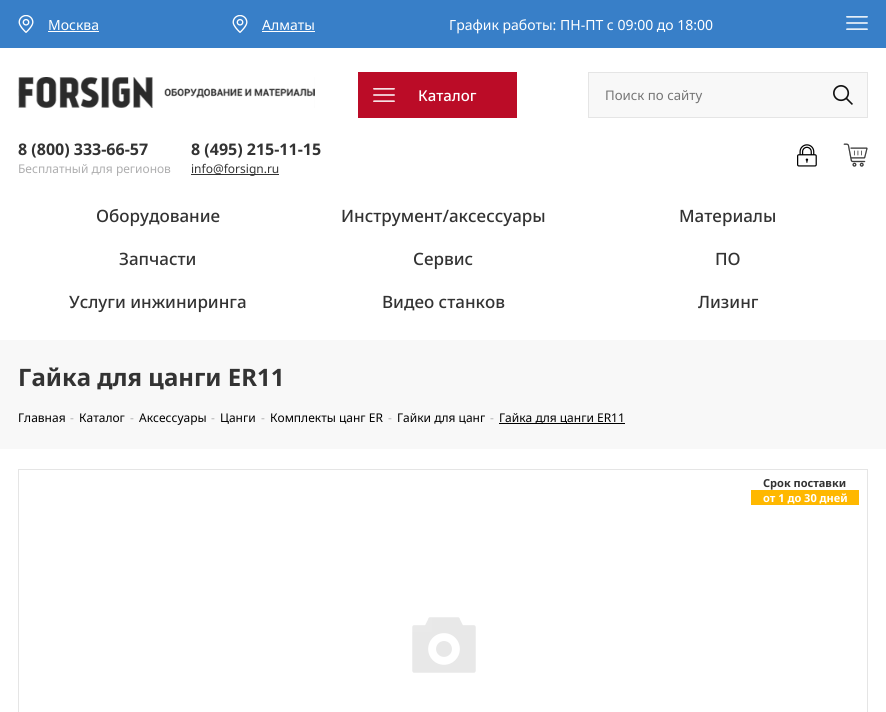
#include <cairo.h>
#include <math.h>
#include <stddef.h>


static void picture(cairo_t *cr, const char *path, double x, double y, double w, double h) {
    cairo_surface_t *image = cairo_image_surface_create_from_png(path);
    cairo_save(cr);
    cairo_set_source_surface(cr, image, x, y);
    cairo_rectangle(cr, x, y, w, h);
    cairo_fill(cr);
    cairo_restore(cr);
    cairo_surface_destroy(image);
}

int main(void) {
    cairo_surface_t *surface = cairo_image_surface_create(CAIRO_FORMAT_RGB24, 886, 712);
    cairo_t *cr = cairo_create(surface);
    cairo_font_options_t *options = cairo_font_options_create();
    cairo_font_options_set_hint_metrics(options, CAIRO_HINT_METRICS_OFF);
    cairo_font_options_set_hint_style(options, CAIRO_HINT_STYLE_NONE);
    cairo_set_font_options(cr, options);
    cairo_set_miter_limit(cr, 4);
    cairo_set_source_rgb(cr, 1, 1, 1);
    cairo_paint(cr);
    cairo_set_source_rgb(cr, 0.22, 0.498, 0.784);
    cairo_rectangle(cr, 0, 0, 886, 48);
    cairo_fill(cr);
    picture(cr, "img1.png", 18, 15, 16, 18);
    cairo_select_font_face(cr, "Noto Sans", CAIRO_FONT_SLANT_NORMAL, CAIRO_FONT_WEIGHT_NORMAL);
    cairo_set_font_size(cr, 14);
    cairo_set_source_rgb(cr, 1, 1, 1);
    cairo_move_to(cr, 48, 30);
    cairo_show_text(cr, "Москва");
    cairo_rectangle(cr, 48, 31, 51, 1);
    cairo_fill(cr);
    picture(cr, "img1.png", 232, 15, 16, 18);
    cairo_move_to(cr, 262, 30);
    cairo_show_text(cr, "Алматы");
    cairo_rectangle(cr, 262, 31, 53, 1);
    cairo_fill(cr);
    cairo_move_to(cr, 449, 30);
    cairo_show_text(cr, "График работы: ПН-ПТ с 09:00 до 18:00");
    picture(cr, "img2.png", 846, 16, 22, 14);
    picture(cr, "img3.png", 18, 77, 297, 31);
    cairo_set_source_rgb(cr, 0.733, 0.047, 0.153);
    cairo_rectangle(cr, 358, 72, 159, 46);
    cairo_fill(cr);
    picture(cr, "img4.png", 373, 88, 22, 14);
    cairo_select_font_face(cr, "Noto Sans Medium", CAIRO_FONT_SLANT_NORMAL, CAIRO_FONT_WEIGHT_NORMAL);
    cairo_set_font_size(cr, 15);
    cairo_set_source_rgb(cr, 1, 1, 1);
    cairo_move_to(cr, 418, 101);
    cairo_show_text(cr, "Каталог");
    cairo_set_source_rgb(cr, 0.969, 0.969, 0.969);
    cairo_rectangle(cr, 588.5, 72.5, 279, 45);
    cairo_fill_preserve(cr);
    cairo_set_source_rgb(cr, 0.898, 0.898, 0.898);
    cairo_set_line_width(cr, 1);
    cairo_stroke(cr);
    cairo_select_font_face(cr, "Noto Sans", CAIRO_FONT_SLANT_NORMAL, CAIRO_FONT_WEIGHT_NORMAL);
    cairo_set_font_size(cr, 13.25);
    cairo_set_source_rgb(cr, 0.459, 0.459, 0.459);
    cairo_move_to(cr, 605, 100);
    cairo_show_text(cr, "Поиск по сайту");
    picture(cr, "img5.png", 833, 85, 20, 20);
    cairo_select_font_face(cr, "Noto Sans", CAIRO_FONT_SLANT_NORMAL, CAIRO_FONT_WEIGHT_BOLD);
    cairo_set_font_size(cr, 16);
    cairo_set_source_rgb(cr, 0.2, 0.2, 0.2);
    cairo_move_to(cr, 18, 155);
    cairo_show_text(cr, "8 (800) 333-66-57");
    cairo_select_font_face(cr, "Noto Sans", CAIRO_FONT_SLANT_NORMAL, CAIRO_FONT_WEIGHT_NORMAL);
    cairo_set_font_size(cr, 12);
    cairo_set_source_rgb(cr, 0.682, 0.682, 0.686);
    cairo_move_to(cr, 18, 173);
    cairo_show_text(cr, "Бесплатный для регионов");
    cairo_select_font_face(cr, "Noto Sans", CAIRO_FONT_SLANT_NORMAL, CAIRO_FONT_WEIGHT_BOLD);
    cairo_set_font_size(cr, 16);
    cairo_set_source_rgb(cr, 0.2, 0.2, 0.2);
    cairo_move_to(cr, 191, 155);
    cairo_show_text(cr, "8 (495) 215-11-15");
    cairo_rectangle(cr, 191, 174, 88, 1);
    cairo_fill(cr);
    cairo_select_font_face(cr, "Noto Sans", CAIRO_FONT_SLANT_NORMAL, CAIRO_FONT_WEIGHT_NORMAL);
    cairo_set_font_size(cr, 12);
    cairo_move_to(cr, 191, 173);
    cairo_show_text(cr, "info@forsign.ru");
    picture(cr, "img6.png", 797, 144, 20, 23);
    picture(cr, "img7.png", 843, 143, 25, 24);
    cairo_select_font_face(cr, "Noto Sans Medium", CAIRO_FONT_SLANT_NORMAL, CAIRO_FONT_WEIGHT_NORMAL);
    cairo_set_font_size(cr, 17);
    cairo_move_to(cr, 96, 222);
    cairo_show_text(cr, "Оборудование");
    cairo_move_to(cr, 341, 222);
    cairo_show_text(cr, "Инструмент/аксессуары");
    cairo_move_to(cr, 679, 222);
    cairo_show_text(cr, "Материалы");
    cairo_move_to(cr, 119, 265);
    cairo_show_text(cr, "Запчасти");
    cairo_move_to(cr, 413, 265);
    cairo_show_text(cr, "Сервис");
    cairo_move_to(cr, 715, 265);
    cairo_show_text(cr, "ПО");
    cairo_move_to(cr, 69, 308);
    cairo_show_text(cr, "Услуги инжиниринга");
    cairo_move_to(cr, 382, 308);
    cairo_show_text(cr, "Видео станков");
    cairo_move_to(cr, 698, 308);
    cairo_show_text(cr, "Лизинг");
    cairo_set_source_rgb(cr, 0.969, 0.969, 0.969);
    cairo_rectangle(cr, 0, 340, 886, 109);
    cairo_fill(cr);
    cairo_select_font_face(cr, "Noto Sans", CAIRO_FONT_SLANT_NORMAL, CAIRO_FONT_WEIGHT_BOLD);
    cairo_set_font_size(cr, 24);
    cairo_set_source_rgb(cr, 0.2, 0.2, 0.2);
    cairo_move_to(cr, 18, 386);
    cairo_show_text(cr, "Гайка для цанги ER11");
    cairo_select_font_face(cr, "Noto Sans", CAIRO_FONT_SLANT_NORMAL, CAIRO_FONT_WEIGHT_NORMAL);
    cairo_set_font_size(cr, 12);
    cairo_set_source_rgb(cr, 0, 0, 0);
    cairo_move_to(cr, 18, 422);
    cairo_show_text(cr, "Главная");
    cairo_set_source_rgb(cr, 0.682, 0.682, 0.686);
    cairo_move_to(cr, 70, 422);
    cairo_show_text(cr, "-");
    cairo_set_source_rgb(cr, 0, 0, 0);
    cairo_move_to(cr, 79, 422);
    cairo_show_text(cr, "Каталог");
    cairo_set_source_rgb(cr, 0.682, 0.682, 0.686);
    cairo_move_to(cr, 130, 422);
    cairo_show_text(cr, "-");
    cairo_set_source_rgb(cr, 0, 0, 0);
    cairo_move_to(cr, 139, 422);
    cairo_show_text(cr, "Аксессуары");
    cairo_set_source_rgb(cr, 0.682, 0.682, 0.686);
    cairo_move_to(cr, 211, 422);
    cairo_show_text(cr, "-");
    cairo_set_source_rgb(cr, 0, 0, 0);
    cairo_move_to(cr, 220, 422);
    cairo_show_text(cr, "Цанги");
    cairo_set_source_rgb(cr, 0.682, 0.682, 0.686);
    cairo_move_to(cr, 261, 422);
    cairo_show_text(cr, "-");
    cairo_set_source_rgb(cr, 0, 0, 0);
    cairo_move_to(cr, 270, 422);
    cairo_show_text(cr, "Комплекты цанг ER");
    cairo_set_source_rgb(cr, 0.682, 0.682, 0.686);
    cairo_move_to(cr, 388, 422);
    cairo_show_text(cr, "-");
    cairo_set_source_rgb(cr, 0, 0, 0);
    cairo_move_to(cr, 397, 422);
    cairo_show_text(cr, "Гайки для цанг");
    cairo_set_source_rgb(cr, 0.682, 0.682, 0.686);
    cairo_move_to(cr, 490, 422);
    cairo_show_text(cr, "-");
    cairo_set_source_rgb(cr, 0, 0, 0);
    cairo_rectangle(cr, 499, 423, 126, 1);
    cairo_fill(cr);
    cairo_move_to(cr, 499, 422);
    cairo_show_text(cr, "Гайка для цанги ER11");
    cairo_rectangle(cr, 18.5, 469.5, 849, 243);
    cairo_set_source_rgb(cr, 0.898, 0.898, 0.898);
    cairo_stroke(cr);
    picture(cr, "img8.png", 412, 617, 64, 56);
    cairo_select_font_face(cr, "Noto Sans", CAIRO_FONT_SLANT_NORMAL, CAIRO_FONT_WEIGHT_BOLD);
    cairo_set_font_size(cr, 11);
    cairo_set_source_rgb(cr, 0.2, 0.2, 0.2);
    cairo_move_to(cr, 763, 487);
    cairo_show_text(cr, "Cрок поставки");
    cairo_set_source_rgb(cr, 1, 0.722, 0);
    cairo_rectangle(cr, 751, 490, 108, 15);
    cairo_fill(cr);
    cairo_set_source_rgb(cr, 1, 1, 1);
    cairo_move_to(cr, 763, 502);
    cairo_show_text(cr, "от 1 до 30 дней");
    cairo_surface_write_to_png(surface, "page.png");
    cairo_font_options_destroy(options);
    cairo_destroy(cr);
    cairo_surface_destroy(surface);
    return 0;
}
